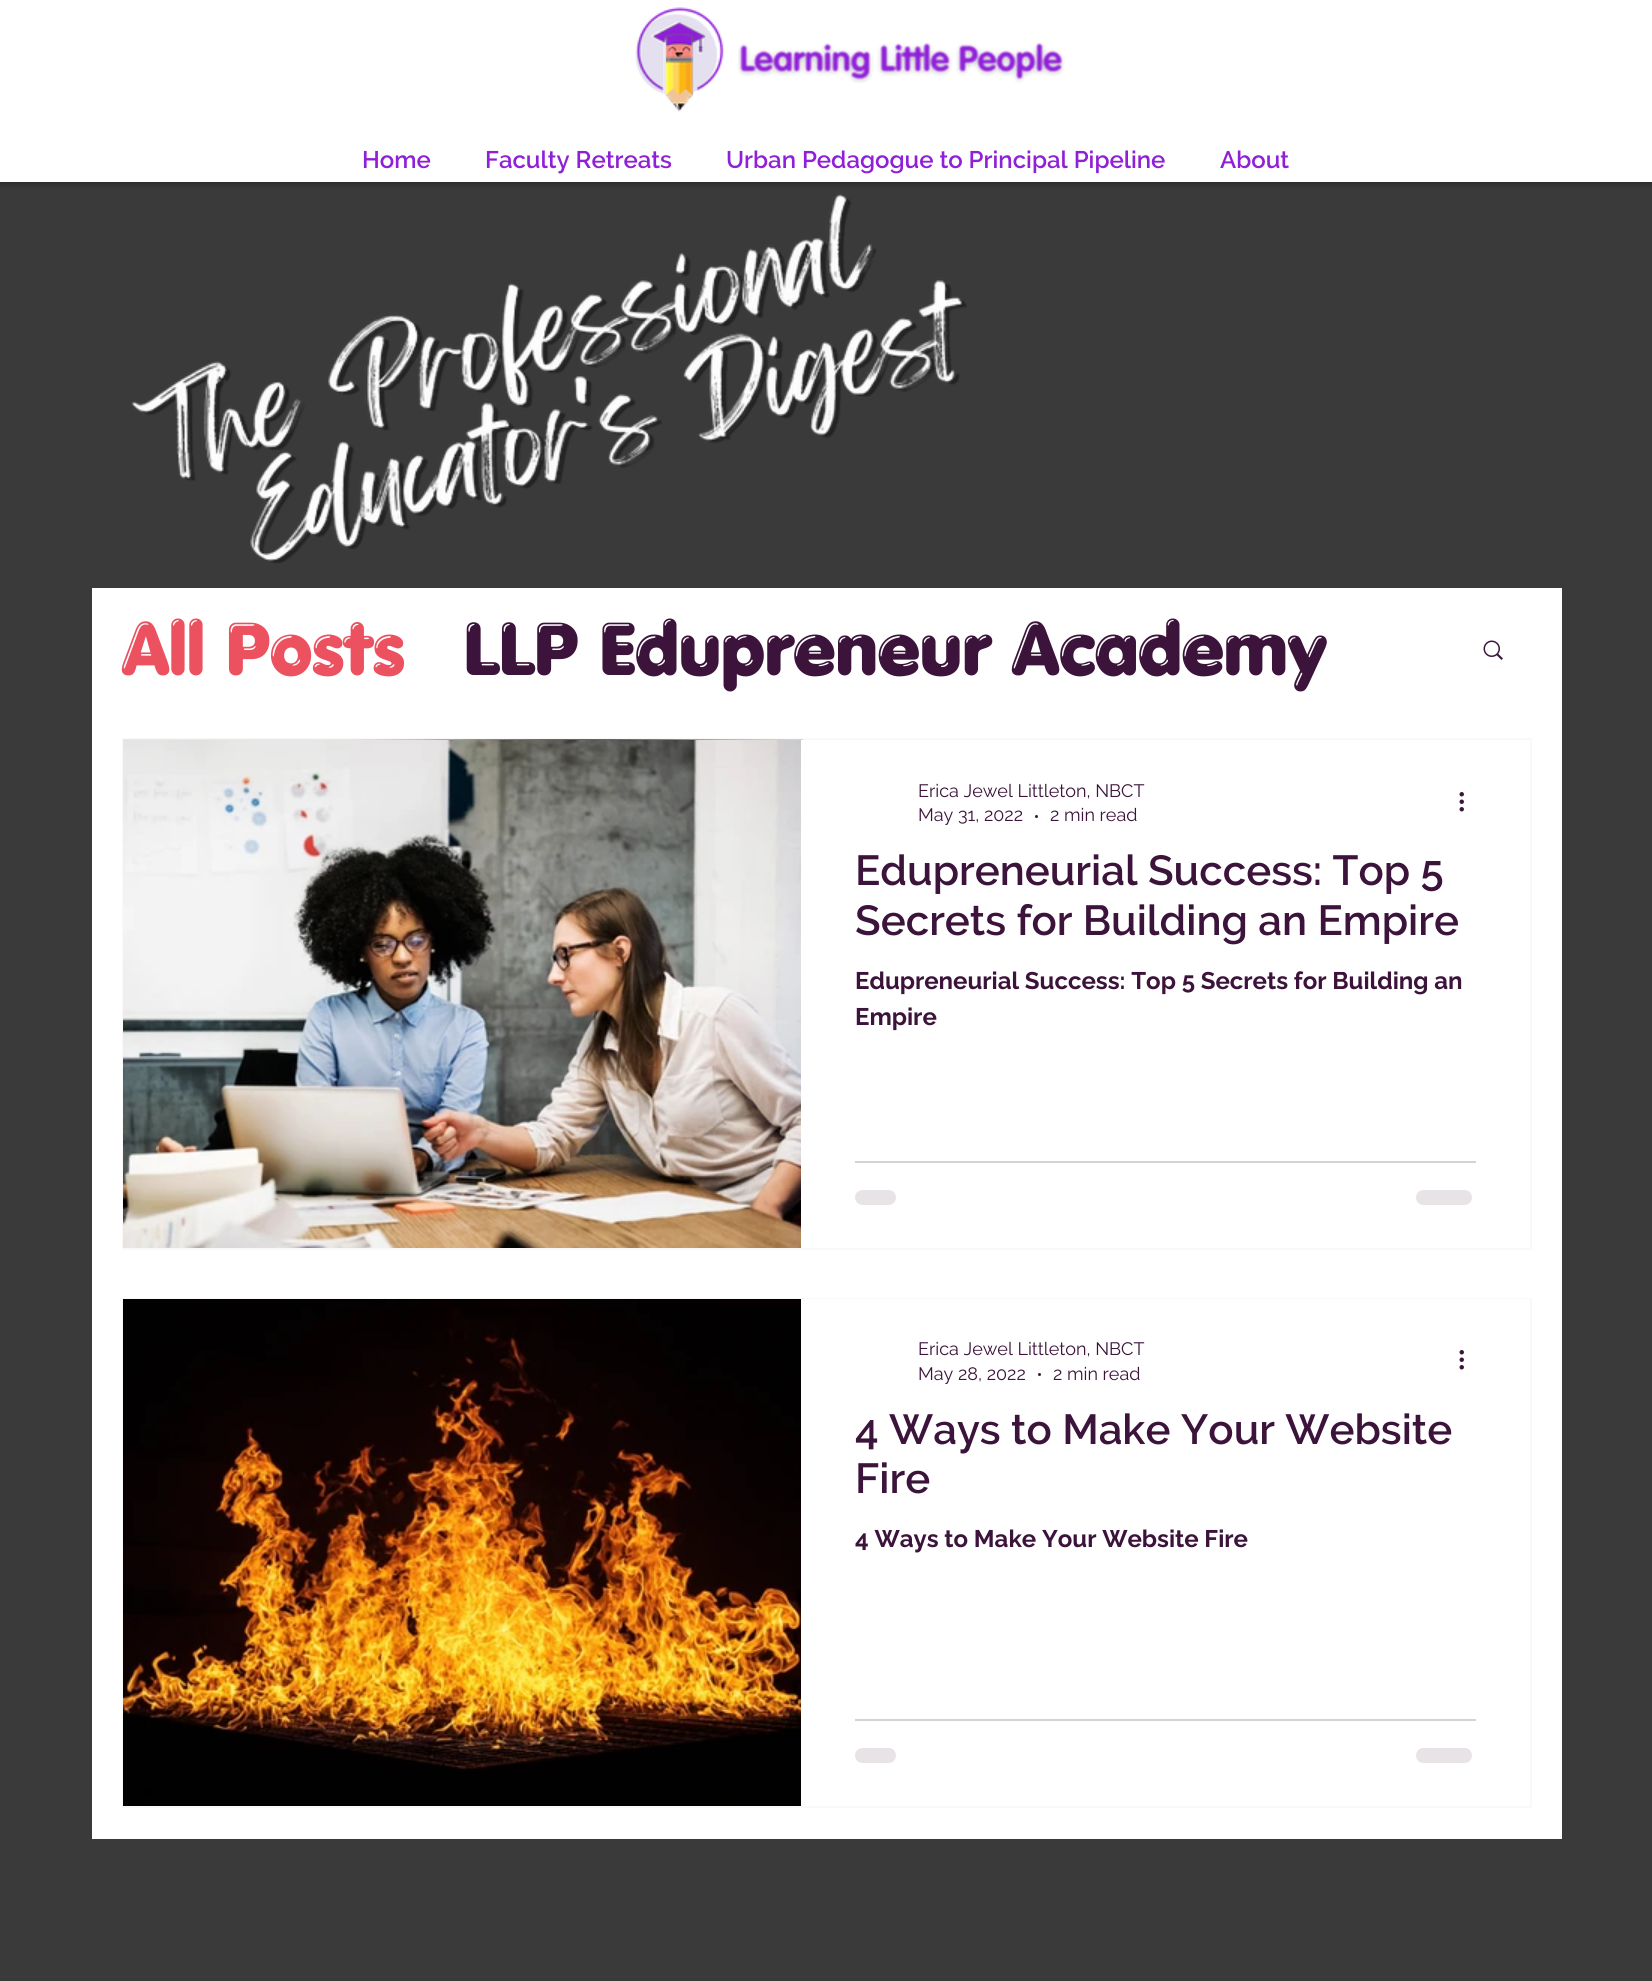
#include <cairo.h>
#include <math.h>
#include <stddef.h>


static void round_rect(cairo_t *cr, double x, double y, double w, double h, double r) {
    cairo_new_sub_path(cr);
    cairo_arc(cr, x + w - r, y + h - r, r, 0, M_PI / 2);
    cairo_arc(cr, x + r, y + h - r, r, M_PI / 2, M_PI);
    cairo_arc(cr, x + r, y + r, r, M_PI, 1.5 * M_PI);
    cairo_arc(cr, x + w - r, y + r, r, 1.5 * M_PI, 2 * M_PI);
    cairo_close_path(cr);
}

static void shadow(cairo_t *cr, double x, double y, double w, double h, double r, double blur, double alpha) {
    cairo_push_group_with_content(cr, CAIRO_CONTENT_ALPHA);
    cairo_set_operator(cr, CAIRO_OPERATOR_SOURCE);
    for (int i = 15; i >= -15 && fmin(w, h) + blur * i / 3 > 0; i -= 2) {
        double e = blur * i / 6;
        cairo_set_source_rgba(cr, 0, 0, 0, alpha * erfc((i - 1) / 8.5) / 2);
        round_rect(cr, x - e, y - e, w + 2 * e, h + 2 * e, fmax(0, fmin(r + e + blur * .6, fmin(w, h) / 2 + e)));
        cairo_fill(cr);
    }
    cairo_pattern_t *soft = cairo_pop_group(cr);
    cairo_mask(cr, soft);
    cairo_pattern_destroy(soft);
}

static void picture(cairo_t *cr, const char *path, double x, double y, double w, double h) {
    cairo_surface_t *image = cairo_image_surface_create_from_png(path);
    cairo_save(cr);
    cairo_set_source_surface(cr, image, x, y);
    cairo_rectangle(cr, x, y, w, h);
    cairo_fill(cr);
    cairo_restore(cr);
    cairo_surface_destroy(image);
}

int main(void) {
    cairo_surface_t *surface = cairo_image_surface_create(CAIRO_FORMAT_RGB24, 1652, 1981);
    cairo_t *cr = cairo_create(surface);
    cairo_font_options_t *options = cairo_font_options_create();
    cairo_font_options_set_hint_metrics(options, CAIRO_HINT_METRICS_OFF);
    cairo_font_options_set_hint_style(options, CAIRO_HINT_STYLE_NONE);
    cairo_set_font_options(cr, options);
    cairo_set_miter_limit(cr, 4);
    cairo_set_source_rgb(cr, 0.231, 0.227, 0.227);
    cairo_paint(cr);
    picture(cr, "img3.png", 131, 194, 836, 370);
    cairo_set_source_rgb(cr, 0, 0, 0);
    shadow(cr, 0, 0, 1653, 182, 0, 4, 0.5);
    cairo_set_source_rgb(cr, 1, 1, 1);
    cairo_rectangle(cr, 0, 0, 1652, 182);
    cairo_fill(cr);
    picture(cr, "img1.png", 635, 7, 89, 105);
    picture(cr, "img2.png", 738, 42, 327, 41);
    cairo_select_font_face(cr, "Raleway SemiBold", CAIRO_FONT_SLANT_NORMAL, CAIRO_FONT_WEIGHT_NORMAL);
    cairo_set_font_size(cr, 24);
    cairo_set_source_rgb(cr, 0.565, 0.122, 0.847);
    cairo_move_to(cr, 362, 168);
    cairo_show_text(cr, "Home");
    cairo_move_to(cr, 485, 168);
    cairo_show_text(cr, "Faculty Retreats");
    cairo_move_to(cr, 726, 168);
    cairo_show_text(cr, "Urban Pedagogue to Principal Pipeline");
    cairo_move_to(cr, 1220, 168);
    cairo_show_text(cr, "About");
    cairo_set_source_rgb(cr, 1, 1, 1);
    cairo_rectangle(cr, 92, 588, 1470, 1251);
    cairo_fill(cr);
    cairo_select_font_face(cr, "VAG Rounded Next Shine", CAIRO_FONT_SLANT_NORMAL, CAIRO_FONT_WEIGHT_NORMAL);
    cairo_set_font_size(cr, 73.5);
    cairo_set_source_rgb(cr, 0.922, 0.318, 0.376);
    cairo_move_to(cr, 122, 675);
    cairo_show_text(cr, "All Posts");
    cairo_set_source_rgb(cr, 0.235, 0.082, 0.231);
    cairo_move_to(cr, 464, 675);
    cairo_show_text(cr, "LLP Edupreneur Academy");
    picture(cr, "img4.png", 1483, 640, 20, 20);
    cairo_rectangle(cr, 123, 739, 1408, 510);
    cairo_set_source_rgb(cr, 0.976, 0.976, 0.976);
    cairo_stroke(cr);
    picture(cr, "img5.png", 123, 739, 680, 1);
    picture(cr, "img6.png", 123, 740, 678, 508);
    cairo_select_font_face(cr, "Raleway", CAIRO_FONT_SLANT_NORMAL, CAIRO_FONT_WEIGHT_NORMAL);
    cairo_set_font_size(cr, 18);
    cairo_set_source_rgb(cr, 0.235, 0.082, 0.231);
    cairo_move_to(cr, 918, 797);
    cairo_show_text(cr, "Erica Jewel Littleton, NBCT");
    cairo_move_to(cr, 918, 821);
    cairo_show_text(cr, "May 31, 2022");
    cairo_new_path(cr);
    cairo_arc(cr, 1036.5, 816.5, 1.5, 0, 2 * M_PI);
    cairo_fill(cr);
    cairo_move_to(cr, 1050, 821);
    cairo_show_text(cr, "2 min read");
    picture(cr, "img7.png", 1459, 792, 5, 20);
    cairo_select_font_face(cr, "Raleway SemiBold", CAIRO_FONT_SLANT_NORMAL, CAIRO_FONT_WEIGHT_NORMAL);
    cairo_set_font_size(cr, 42);
    cairo_move_to(cr, 855, 885);
    cairo_show_text(cr, "Edupreneurial Success: Top 5");
    cairo_move_to(cr, 855, 935);
    cairo_show_text(cr, "Secrets for Building an Empire");
    cairo_select_font_face(cr, "Raleway", CAIRO_FONT_SLANT_NORMAL, CAIRO_FONT_WEIGHT_BOLD);
    cairo_set_font_size(cr, 24);
    cairo_move_to(cr, 855, 989);
    cairo_show_text(cr, "Edupreneurial Success: Top 5 Secrets for Building an");
    cairo_move_to(cr, 855, 1025);
    cairo_show_text(cr, "Empire");
    cairo_set_source_rgb(cr, 0.847, 0.816, 0.847);
    cairo_rectangle(cr, 855, 1161, 621, 2);
    cairo_fill(cr);
    cairo_set_source_rgb(cr, 0.91, 0.89, 0.906);
    round_rect(cr, 855, 1190, 41, 15, 7.5);
    cairo_fill(cr);
    round_rect(cr, 1416, 1190, 56, 15, 7.5);
    cairo_fill(cr);
    cairo_rectangle(cr, 123, 1299, 1408, 508);
    cairo_set_source_rgb(cr, 0.976, 0.976, 0.976);
    cairo_stroke(cr);
    picture(cr, "img8.png", 123, 1299, 678, 507);
    cairo_set_source_rgb(cr, 1, 1, 1);
    cairo_rectangle(cr, 801, 1299, 729, 1);
    cairo_fill(cr);
    cairo_select_font_face(cr, "Raleway", CAIRO_FONT_SLANT_NORMAL, CAIRO_FONT_WEIGHT_NORMAL);
    cairo_set_font_size(cr, 18);
    cairo_set_source_rgb(cr, 0.235, 0.082, 0.231);
    cairo_move_to(cr, 918, 1355);
    cairo_show_text(cr, "Erica Jewel Littleton, NBCT");
    cairo_move_to(cr, 918, 1380);
    cairo_show_text(cr, "May 28, 2022");
    cairo_new_path(cr);
    cairo_arc(cr, 1039.5, 1374.5, 1.5, 0, 2 * M_PI);
    cairo_fill(cr);
    cairo_move_to(cr, 1053, 1380);
    cairo_show_text(cr, "2 min read");
    picture(cr, "img7.png", 1459, 1350, 5, 20);
    cairo_select_font_face(cr, "Raleway SemiBold", CAIRO_FONT_SLANT_NORMAL, CAIRO_FONT_WEIGHT_NORMAL);
    cairo_set_font_size(cr, 42);
    cairo_move_to(cr, 855, 1444);
    cairo_show_text(cr, "4 Ways to Make Your Website");
    cairo_move_to(cr, 855, 1493);
    cairo_show_text(cr, "Fire");
    cairo_select_font_face(cr, "Raleway", CAIRO_FONT_SLANT_NORMAL, CAIRO_FONT_WEIGHT_BOLD);
    cairo_set_font_size(cr, 24);
    cairo_move_to(cr, 855, 1547);
    cairo_show_text(cr, "4 Ways to Make Your Website Fire");
    cairo_set_source_rgb(cr, 0.847, 0.816, 0.847);
    cairo_rectangle(cr, 855, 1719, 621, 2);
    cairo_fill(cr);
    cairo_set_source_rgb(cr, 0.91, 0.89, 0.906);
    round_rect(cr, 855, 1748, 41, 15, 7.5);
    cairo_fill(cr);
    round_rect(cr, 1416, 1748, 56, 15, 7.5);
    cairo_fill(cr);
    cairo_surface_write_to_png(surface, "page.png");
    cairo_font_options_destroy(options);
    cairo_destroy(cr);
    cairo_surface_destroy(surface);
    return 0;
}
